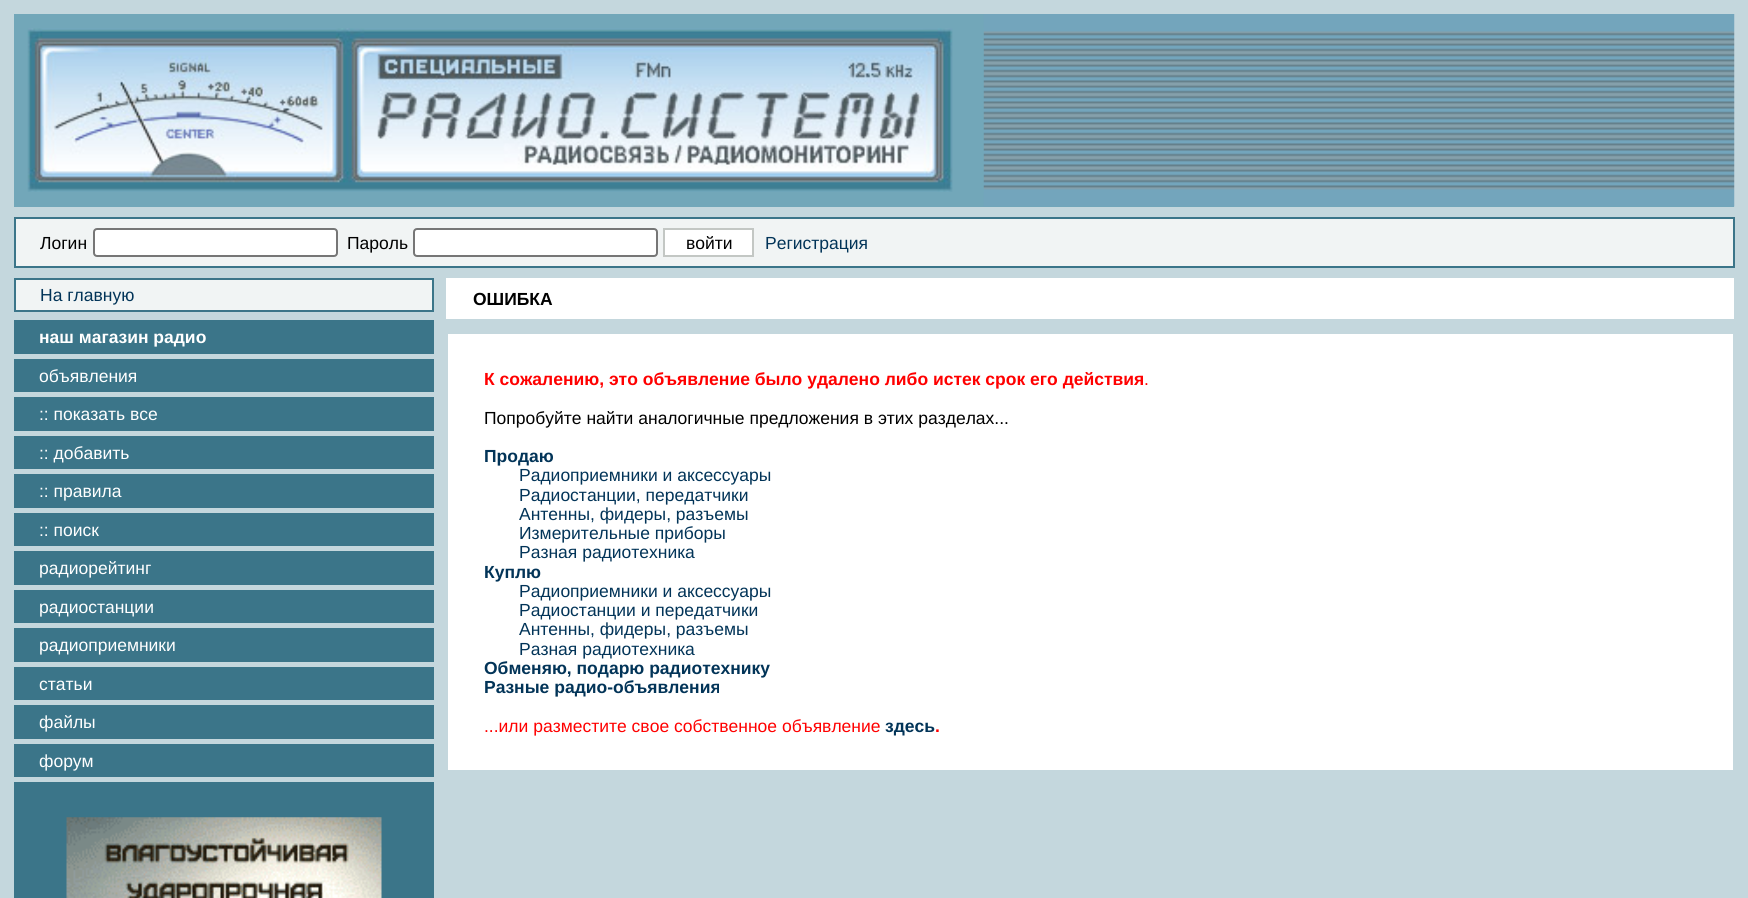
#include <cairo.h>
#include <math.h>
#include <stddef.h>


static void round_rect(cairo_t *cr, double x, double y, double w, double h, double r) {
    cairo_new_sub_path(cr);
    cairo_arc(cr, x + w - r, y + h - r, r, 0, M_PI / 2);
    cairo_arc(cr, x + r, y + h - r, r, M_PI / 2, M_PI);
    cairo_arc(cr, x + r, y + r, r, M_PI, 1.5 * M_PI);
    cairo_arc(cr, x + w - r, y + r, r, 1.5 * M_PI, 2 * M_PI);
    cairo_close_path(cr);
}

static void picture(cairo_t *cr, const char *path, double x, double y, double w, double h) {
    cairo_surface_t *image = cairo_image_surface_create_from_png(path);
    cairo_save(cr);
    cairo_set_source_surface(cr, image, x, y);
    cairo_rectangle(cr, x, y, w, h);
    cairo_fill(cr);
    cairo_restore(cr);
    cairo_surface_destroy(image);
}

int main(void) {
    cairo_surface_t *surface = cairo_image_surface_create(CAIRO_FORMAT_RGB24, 1748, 898);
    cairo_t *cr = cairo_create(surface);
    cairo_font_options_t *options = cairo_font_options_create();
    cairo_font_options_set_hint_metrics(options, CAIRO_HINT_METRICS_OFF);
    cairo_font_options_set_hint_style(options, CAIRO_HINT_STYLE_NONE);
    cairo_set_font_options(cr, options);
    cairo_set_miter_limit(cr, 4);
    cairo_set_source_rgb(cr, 0.769, 0.843, 0.867);
    cairo_paint(cr);
    cairo_set_source_rgb(cr, 0.447, 0.655, 0.725);
    cairo_rectangle(cr, 14, 14, 970, 193);
    cairo_fill(cr);
    cairo_rectangle(cr, 984, 206, 750, 1);
    cairo_fill(cr);
    picture(cr, "img2.png", 983, 14, 752, 193);
    picture(cr, "img1.png", 27, 28, 957, 164);
    cairo_set_source_rgb(cr, 0.231, 0.459, 0.537);
    cairo_rectangle(cr, 14, 217, 1720, 2);
    cairo_fill(cr);
    cairo_rectangle(cr, 1733, 217, 2, 51);
    cairo_fill(cr);
    cairo_rectangle(cr, 14, 266, 1720, 2);
    cairo_fill(cr);
    cairo_rectangle(cr, 14, 217, 2, 51);
    cairo_fill(cr);
    cairo_set_source_rgb(cr, 0.945, 0.957, 0.957);
    cairo_rectangle(cr, 16, 219, 1717, 47);
    cairo_fill(cr);
    cairo_select_font_face(cr, "Liberation Sans", CAIRO_FONT_SLANT_NORMAL, CAIRO_FONT_WEIGHT_NORMAL);
    cairo_set_font_size(cr, 17.5);
    cairo_set_source_rgb(cr, 0, 0, 0);
    cairo_move_to(cr, 40, 249);
    cairo_show_text(cr, "Логин");
    cairo_set_source_rgb(cr, 1, 1, 1);
    round_rect(cr, 94, 229, 243, 27, 3);
    cairo_fill_preserve(cr);
    cairo_set_source_rgb(cr, 0.463, 0.463, 0.463);
    cairo_stroke(cr);
    cairo_set_source_rgb(cr, 0, 0, 0);
    cairo_move_to(cr, 347, 249);
    cairo_show_text(cr, "Пароль");
    cairo_set_source_rgb(cr, 1, 1, 1);
    round_rect(cr, 414, 229, 243, 27, 3);
    cairo_fill_preserve(cr);
    cairo_set_source_rgb(cr, 0.463, 0.463, 0.463);
    cairo_stroke(cr);
    cairo_set_source_rgb(cr, 1, 1, 1);
    cairo_rectangle(cr, 664, 229, 89, 27);
    cairo_fill_preserve(cr);
    cairo_set_source_rgb(cr, 0.765, 0.78, 0.769);
    cairo_stroke(cr);
    cairo_set_source_rgb(cr, 0, 0, 0);
    cairo_move_to(cr, 686, 249);
    cairo_show_text(cr, "войти");
    cairo_set_source_rgb(cr, 0.008, 0.204, 0.345);
    cairo_move_to(cr, 765, 249);
    cairo_show_text(cr, "Регистрация");
    cairo_set_source_rgb(cr, 0.231, 0.459, 0.537);
    cairo_rectangle(cr, 14, 278, 420, 620);
    cairo_fill(cr);
    cairo_set_source_rgb(cr, 0.945, 0.957, 0.957);
    cairo_rectangle(cr, 16, 280, 416, 30);
    cairo_fill(cr);
    cairo_set_source_rgb(cr, 0.008, 0.204, 0.345);
    cairo_move_to(cr, 40, 301);
    cairo_show_text(cr, "На главную");
    cairo_set_source_rgb(cr, 0.769, 0.843, 0.867);
    cairo_rectangle(cr, 14, 312, 420, 3);
    cairo_fill(cr);
    cairo_rectangle(cr, 12, 315, 426, 5);
    cairo_fill(cr);
    cairo_select_font_face(cr, "Liberation Sans", CAIRO_FONT_SLANT_NORMAL, CAIRO_FONT_WEIGHT_BOLD);
    cairo_set_source_rgb(cr, 1, 1, 1);
    cairo_move_to(cr, 39, 343);
    cairo_show_text(cr, "наш магазин радио");
    cairo_set_source_rgb(cr, 0.769, 0.843, 0.867);
    cairo_rectangle(cr, 12, 354, 426, 5);
    cairo_fill(cr);
    cairo_select_font_face(cr, "Liberation Sans", CAIRO_FONT_SLANT_NORMAL, CAIRO_FONT_WEIGHT_NORMAL);
    cairo_set_source_rgb(cr, 1, 1, 1);
    cairo_move_to(cr, 39, 382);
    cairo_show_text(cr, "объявления");
    cairo_set_source_rgb(cr, 0.769, 0.843, 0.867);
    cairo_rectangle(cr, 12, 392, 426, 5);
    cairo_fill(cr);
    cairo_set_source_rgb(cr, 1, 1, 1);
    cairo_move_to(cr, 39, 420);
    cairo_show_text(cr, ":: показать все");
    cairo_set_source_rgb(cr, 0.769, 0.843, 0.867);
    cairo_rectangle(cr, 12, 431, 426, 5);
    cairo_fill(cr);
    cairo_set_source_rgb(cr, 1, 1, 1);
    cairo_move_to(cr, 39, 459);
    cairo_show_text(cr, ":: добавить");
    cairo_set_source_rgb(cr, 0.769, 0.843, 0.867);
    cairo_rectangle(cr, 12, 469, 426, 5);
    cairo_fill(cr);
    cairo_set_source_rgb(cr, 1, 1, 1);
    cairo_move_to(cr, 39, 497);
    cairo_show_text(cr, ":: правила");
    cairo_set_source_rgb(cr, 0.769, 0.843, 0.867);
    cairo_rectangle(cr, 12, 508, 426, 5);
    cairo_fill(cr);
    cairo_set_source_rgb(cr, 1, 1, 1);
    cairo_move_to(cr, 39, 536);
    cairo_show_text(cr, ":: поиск");
    cairo_set_source_rgb(cr, 0.769, 0.843, 0.867);
    cairo_rectangle(cr, 12, 546, 426, 5);
    cairo_fill(cr);
    cairo_set_source_rgb(cr, 1, 1, 1);
    cairo_move_to(cr, 39, 574);
    cairo_show_text(cr, "радиорейтинг");
    cairo_set_source_rgb(cr, 0.769, 0.843, 0.867);
    cairo_rectangle(cr, 12, 585, 426, 5);
    cairo_fill(cr);
    cairo_set_source_rgb(cr, 1, 1, 1);
    cairo_move_to(cr, 39, 613);
    cairo_show_text(cr, "радиостанции");
    cairo_set_source_rgb(cr, 0.769, 0.843, 0.867);
    cairo_rectangle(cr, 12, 623, 426, 5);
    cairo_fill(cr);
    cairo_set_source_rgb(cr, 1, 1, 1);
    cairo_move_to(cr, 39, 651);
    cairo_show_text(cr, "радиоприемники");
    cairo_set_source_rgb(cr, 0.769, 0.843, 0.867);
    cairo_rectangle(cr, 12, 662, 426, 5);
    cairo_fill(cr);
    cairo_set_source_rgb(cr, 1, 1, 1);
    cairo_move_to(cr, 39, 690);
    cairo_show_text(cr, "статьи");
    cairo_set_source_rgb(cr, 0.769, 0.843, 0.867);
    cairo_rectangle(cr, 12, 700, 426, 5);
    cairo_fill(cr);
    cairo_set_source_rgb(cr, 1, 1, 1);
    cairo_move_to(cr, 39, 728);
    cairo_show_text(cr, "файлы");
    cairo_set_source_rgb(cr, 0.769, 0.843, 0.867);
    cairo_rectangle(cr, 12, 739, 426, 5);
    cairo_fill(cr);
    cairo_rectangle(cr, 12, 777, 426, 5);
    cairo_fill(cr);
    cairo_set_source_rgb(cr, 1, 1, 1);
    cairo_move_to(cr, 39, 767);
    cairo_show_text(cr, "форум");
    picture(cr, "img3.png", 66, 817, 316, 81);
    cairo_rectangle(cr, 446, 278, 1288, 41);
    cairo_fill(cr);
    cairo_select_font_face(cr, "Liberation Sans", CAIRO_FONT_SLANT_NORMAL, CAIRO_FONT_WEIGHT_BOLD);
    cairo_set_source_rgb(cr, 0, 0, 0);
    cairo_move_to(cr, 473, 305);
    cairo_show_text(cr, "ОШИБКА");
    cairo_set_source_rgb(cr, 1, 1, 1);
    cairo_rectangle(cr, 448, 334, 1285, 436);
    cairo_fill(cr);
    cairo_set_source_rgb(cr, 1, 0, 0);
    cairo_move_to(cr, 484, 385);
    cairo_show_text(cr, "К сожалению, это объявление было удалено либо истек срок его действия");
    cairo_select_font_face(cr, "Liberation Sans", CAIRO_FONT_SLANT_NORMAL, CAIRO_FONT_WEIGHT_NORMAL);
    cairo_move_to(cr, 1144, 385);
    cairo_show_text(cr, ".");
    cairo_set_source_rgb(cr, 0, 0, 0);
    cairo_move_to(cr, 484, 424);
    cairo_show_text(cr, "Попробуйте найти аналогичные предложения в этих разделах...");
    cairo_select_font_face(cr, "Liberation Sans", CAIRO_FONT_SLANT_NORMAL, CAIRO_FONT_WEIGHT_BOLD);
    cairo_set_source_rgb(cr, 0.008, 0.204, 0.345);
    cairo_move_to(cr, 484, 462);
    cairo_show_text(cr, "Продаю");
    cairo_select_font_face(cr, "Liberation Sans", CAIRO_FONT_SLANT_NORMAL, CAIRO_FONT_WEIGHT_NORMAL);
    cairo_move_to(cr, 519, 481);
    cairo_show_text(cr, "Радиоприемники и аксессуары");
    cairo_move_to(cr, 519, 501);
    cairo_show_text(cr, "Радиостанции, передатчики");
    cairo_move_to(cr, 519, 520);
    cairo_show_text(cr, "Антенны, фидеры, разъемы");
    cairo_move_to(cr, 519, 539);
    cairo_show_text(cr, "Измерительные приборы");
    cairo_move_to(cr, 519, 558);
    cairo_show_text(cr, "Разная радиотехника");
    cairo_select_font_face(cr, "Liberation Sans", CAIRO_FONT_SLANT_NORMAL, CAIRO_FONT_WEIGHT_BOLD);
    cairo_move_to(cr, 484, 578);
    cairo_show_text(cr, "Куплю");
    cairo_select_font_face(cr, "Liberation Sans", CAIRO_FONT_SLANT_NORMAL, CAIRO_FONT_WEIGHT_NORMAL);
    cairo_move_to(cr, 519, 597);
    cairo_show_text(cr, "Радиоприемники и аксессуары");
    cairo_move_to(cr, 519, 616);
    cairo_show_text(cr, "Радиостанции и передатчики");
    cairo_move_to(cr, 519, 635);
    cairo_show_text(cr, "Антенны, фидеры, разъемы");
    cairo_move_to(cr, 519, 655);
    cairo_show_text(cr, "Разная радиотехника");
    cairo_select_font_face(cr, "Liberation Sans", CAIRO_FONT_SLANT_NORMAL, CAIRO_FONT_WEIGHT_BOLD);
    cairo_move_to(cr, 484, 674);
    cairo_show_text(cr, "Обменяю, подарю радиотехнику");
    cairo_move_to(cr, 484, 693);
    cairo_show_text(cr, "Разные радио-объявления");
    cairo_select_font_face(cr, "Liberation Sans", CAIRO_FONT_SLANT_NORMAL, CAIRO_FONT_WEIGHT_NORMAL);
    cairo_set_source_rgb(cr, 1, 0, 0);
    cairo_move_to(cr, 484, 732);
    cairo_show_text(cr, "...или разместите свое собственное объявление");
    cairo_select_font_face(cr, "Liberation Sans", CAIRO_FONT_SLANT_NORMAL, CAIRO_FONT_WEIGHT_BOLD);
    cairo_set_source_rgb(cr, 0.008, 0.204, 0.345);
    cairo_move_to(cr, 885, 732);
    cairo_show_text(cr, "здесь");
    cairo_set_source_rgb(cr, 1, 0, 0);
    cairo_move_to(cr, 935, 732);
    cairo_show_text(cr, ".");
    cairo_surface_write_to_png(surface, "page.png");
    cairo_font_options_destroy(options);
    cairo_destroy(cr);
    cairo_surface_destroy(surface);
    return 0;
}
